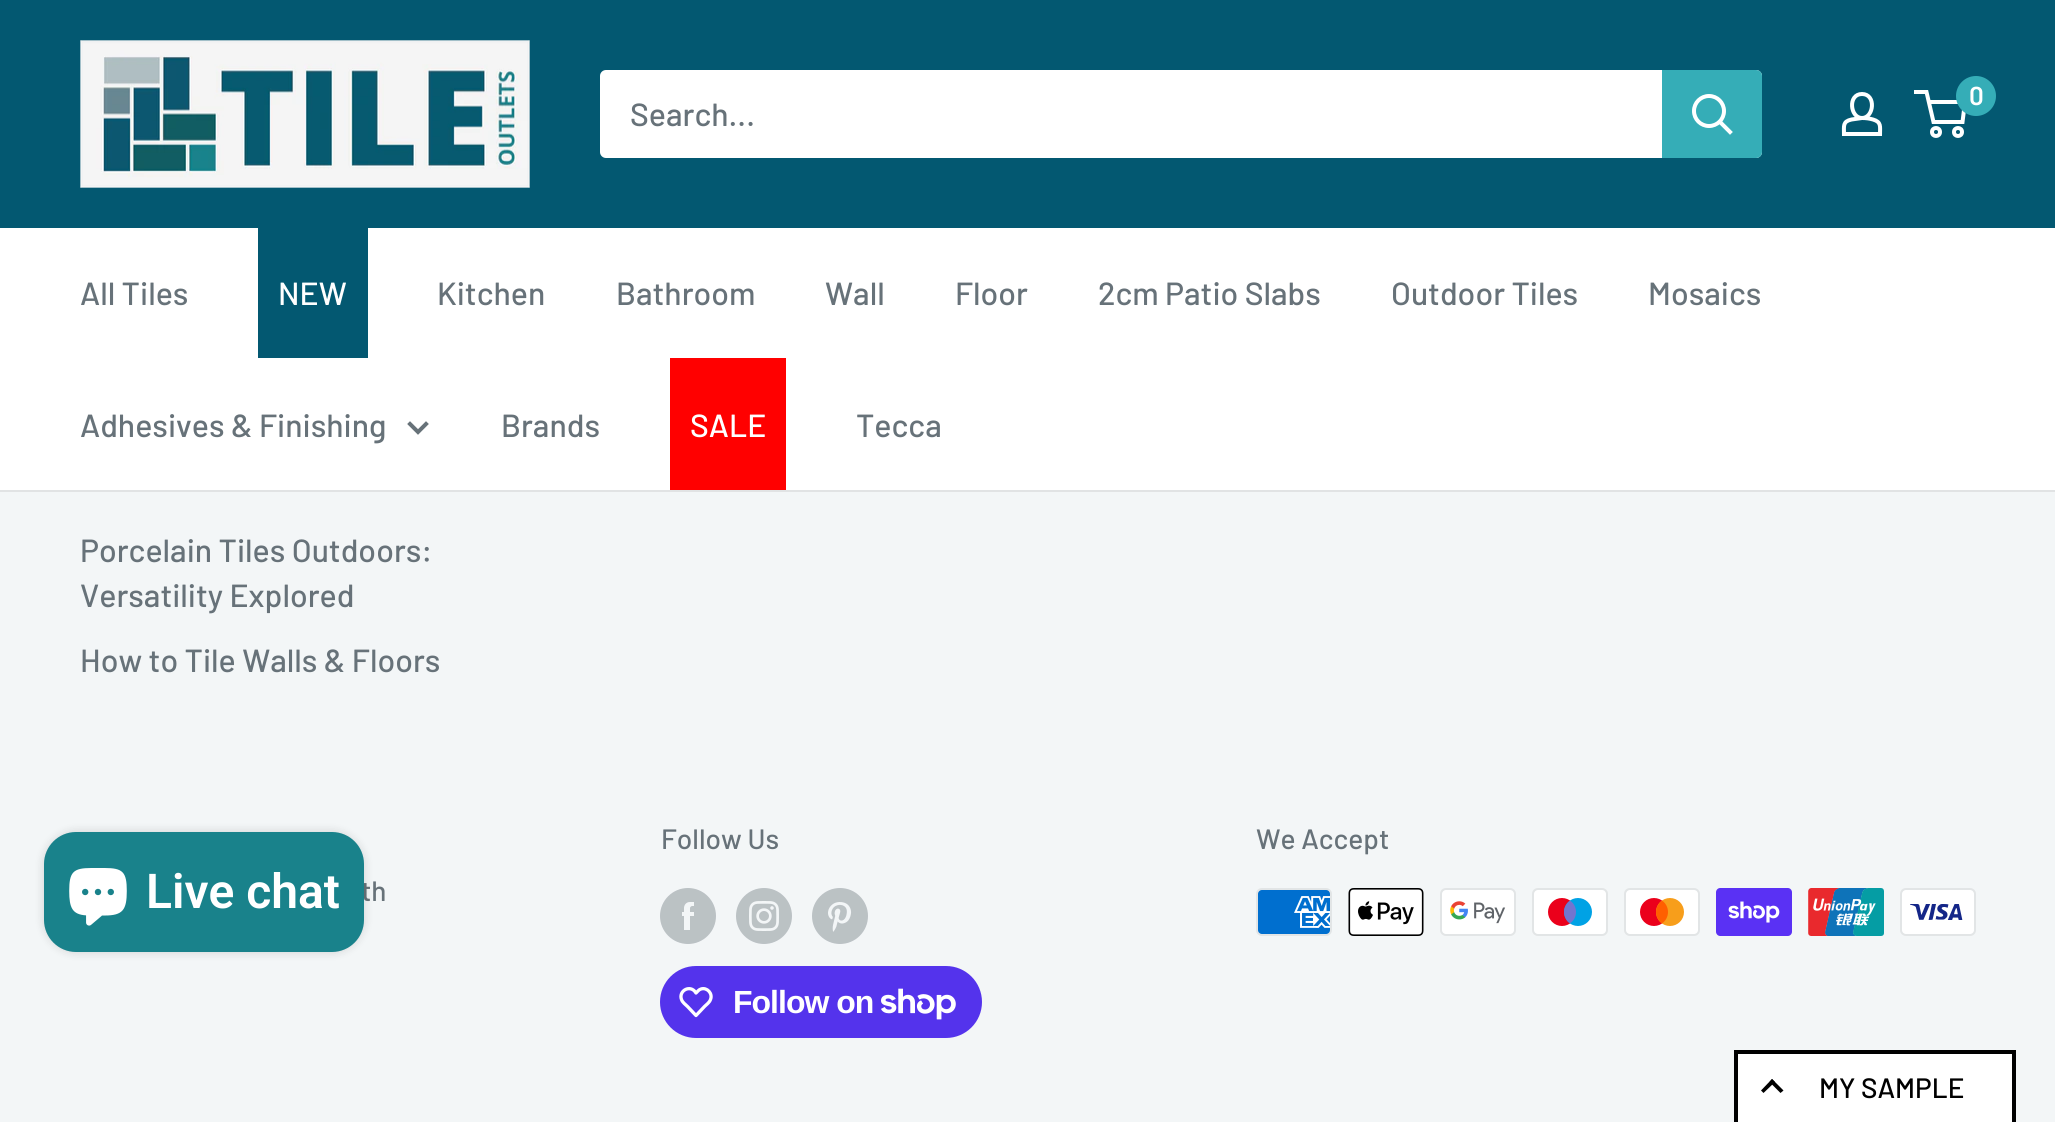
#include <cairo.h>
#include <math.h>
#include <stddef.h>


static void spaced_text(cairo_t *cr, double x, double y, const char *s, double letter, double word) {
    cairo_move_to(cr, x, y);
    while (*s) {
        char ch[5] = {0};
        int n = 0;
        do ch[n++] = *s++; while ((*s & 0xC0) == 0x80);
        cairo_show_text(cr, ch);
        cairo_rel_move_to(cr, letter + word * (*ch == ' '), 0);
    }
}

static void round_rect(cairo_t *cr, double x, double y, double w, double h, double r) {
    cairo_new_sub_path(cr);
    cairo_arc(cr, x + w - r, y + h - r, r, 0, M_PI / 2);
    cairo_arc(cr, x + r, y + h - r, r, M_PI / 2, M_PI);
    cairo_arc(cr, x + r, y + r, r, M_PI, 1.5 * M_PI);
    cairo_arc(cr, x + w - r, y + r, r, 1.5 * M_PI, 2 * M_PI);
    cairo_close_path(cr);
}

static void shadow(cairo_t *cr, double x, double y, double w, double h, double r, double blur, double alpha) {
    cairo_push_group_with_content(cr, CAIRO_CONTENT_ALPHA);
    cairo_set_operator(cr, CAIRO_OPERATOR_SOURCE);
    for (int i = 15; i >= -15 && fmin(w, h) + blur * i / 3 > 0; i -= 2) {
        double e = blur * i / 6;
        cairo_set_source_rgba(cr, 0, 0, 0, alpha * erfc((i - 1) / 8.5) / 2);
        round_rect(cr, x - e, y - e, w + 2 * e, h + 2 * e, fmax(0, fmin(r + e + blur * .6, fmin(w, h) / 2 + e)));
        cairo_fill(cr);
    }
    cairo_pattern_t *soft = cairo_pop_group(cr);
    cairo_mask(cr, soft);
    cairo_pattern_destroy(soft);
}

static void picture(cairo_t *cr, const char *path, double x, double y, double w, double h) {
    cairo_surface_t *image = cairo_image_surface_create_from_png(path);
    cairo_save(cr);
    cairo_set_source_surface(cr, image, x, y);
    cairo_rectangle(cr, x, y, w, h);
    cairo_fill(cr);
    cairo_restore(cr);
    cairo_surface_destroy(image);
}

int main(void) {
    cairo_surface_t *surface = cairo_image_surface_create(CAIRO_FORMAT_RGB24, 2055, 1122);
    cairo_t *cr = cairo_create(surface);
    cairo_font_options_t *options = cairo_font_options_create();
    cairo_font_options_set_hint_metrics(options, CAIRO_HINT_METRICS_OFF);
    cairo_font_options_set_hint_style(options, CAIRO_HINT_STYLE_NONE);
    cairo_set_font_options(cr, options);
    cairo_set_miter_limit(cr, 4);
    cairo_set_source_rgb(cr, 0.953, 0.961, 0.965);
    cairo_paint(cr);
    cairo_set_source_rgb(cr, 0.012, 0.345, 0.443);
    cairo_rectangle(cr, 0, 0, 2055, 228);
    cairo_fill(cr);
    picture(cr, "img1.png", 80, 40, 450, 148);
    cairo_new_path(cr);
    cairo_move_to(cr, 1862, 118);
    cairo_curve_to(cr, 1866, 118, 1869.5, 118.5, 1873, 119.5);
    cairo_curve_to(cr, 1881.5, 122, 1880, 126.5, 1880, 134);
    cairo_line_to(cr, 1844, 134);
    cairo_curve_to(cr, 1844, 126, 1842.5, 121.5, 1851.5, 119.5);
    cairo_close_path(cr);
    cairo_move_to(cr, 1862, 118);
    cairo_curve_to(cr, 1850, 118, 1847.5, 94, 1862, 94);
    cairo_curve_to(cr, 1876.5, 94, 1874, 118, 1862, 118);
    cairo_close_path(cr);
    cairo_set_source_rgb(cr, 1, 1, 1);
    cairo_set_line_width(cr, 4);
    cairo_stroke(cr);
    cairo_arc(cr, 1936, 132, 4, 0, 2 * M_PI);
    cairo_stroke(cr);
    cairo_arc(cr, 1958, 132, 4, 0, 2 * M_PI);
    cairo_stroke(cr);
    cairo_new_path(cr);
    cairo_move_to(cr, 1928.5, 102);
    cairo_line_to(cr, 1965, 102);
    cairo_line_to(cr, 1962.5, 122);
    cairo_line_to(cr, 1933.5, 122);
    cairo_line_to(cr, 1926.5, 92);
    cairo_line_to(cr, 1914, 92);
    cairo_stroke(cr);
    cairo_set_source_rgb(cr, 0.208, 0.678, 0.718);
    cairo_arc(cr, 1976, 96, 20, 0, 2 * M_PI);
    cairo_fill(cr);
    cairo_select_font_face(cr, "Barlow SemiBold", CAIRO_FONT_SLANT_NORMAL, CAIRO_FONT_WEIGHT_NORMAL);
    cairo_set_font_size(cr, 26);
    cairo_set_source_rgb(cr, 1, 1, 1);
    cairo_move_to(cr, 1969, 105);
    cairo_show_text(cr, "0");
    round_rect(cr, 600, 70, 1162, 88, 6);
    cairo_fill(cr);
    cairo_select_font_face(cr, "Barlow Medium", CAIRO_FONT_SLANT_NORMAL, CAIRO_FONT_WEIGHT_NORMAL);
    cairo_set_font_size(cr, 32);
    cairo_set_source_rgb(cr, 0.404, 0.447, 0.475);
    cairo_move_to(cr, 630, 126);
    cairo_show_text(cr, "Search...");
    cairo_set_source_rgb(cr, 0.208, 0.678, 0.718);
    cairo_new_path(cr);
    cairo_move_to(cr, 1662, 70);
    cairo_line_to(cr, 1756, 70);
    cairo_curve_to(cr, 1759.5, 70, 1762, 72.5, 1762, 76);
    cairo_line_to(cr, 1762, 152);
    cairo_curve_to(cr, 1762, 155.5, 1759.5, 158, 1756, 158);
    cairo_line_to(cr, 1662, 158);
    cairo_close_path(cr);
    cairo_fill(cr);
    cairo_new_path(cr);
    cairo_move_to(cr, 1730, 132);
    cairo_line_to(cr, 1720, 122);
    cairo_set_source_rgb(cr, 1, 1, 1);
    cairo_set_line_cap(cr, CAIRO_LINE_CAP_SQUARE);
    cairo_stroke(cr);
    cairo_arc(cr, 1709, 111, 15, 0, 2 * M_PI);
    cairo_set_line_cap(cr, CAIRO_LINE_CAP_BUTT);
    cairo_stroke(cr);
    cairo_rectangle(cr, 0, 228, 2055, 262);
    cairo_fill(cr);
    cairo_set_source_rgb(cr, 0.882, 0.89, 0.894);
    cairo_rectangle(cr, 0, 490, 2055, 2);
    cairo_fill(cr);
    cairo_set_source_rgb(cr, 0.404, 0.447, 0.475);
    cairo_move_to(cr, 80, 305);
    cairo_show_text(cr, "All Tiles");
    cairo_set_source_rgb(cr, 0.012, 0.345, 0.443);
    cairo_rectangle(cr, 258, 228, 110, 130);
    cairo_fill(cr);
    cairo_set_source_rgb(cr, 1, 1, 1);
    cairo_move_to(cr, 278, 305);
    cairo_show_text(cr, "NEW");
    cairo_set_source_rgb(cr, 0.404, 0.447, 0.475);
    cairo_move_to(cr, 437, 305);
    cairo_show_text(cr, "Kitchen");
    cairo_move_to(cr, 616, 305);
    cairo_show_text(cr, "Bathroom");
    cairo_move_to(cr, 825, 305);
    cairo_show_text(cr, "Wall");
    cairo_move_to(cr, 955, 305);
    cairo_show_text(cr, "Floor");
    cairo_move_to(cr, 1098, 305);
    cairo_show_text(cr, "2cm Patio Slabs");
    cairo_move_to(cr, 1391, 305);
    cairo_show_text(cr, "Outdoor Tiles");
    cairo_move_to(cr, 1648, 305);
    cairo_show_text(cr, "Mosaics");
    cairo_move_to(cr, 80, 437);
    cairo_show_text(cr, "Adhesives & Finishing");
    cairo_new_path(cr);
    cairo_move_to(cr, 426, 424);
    cairo_line_to(cr, 418, 432);
    cairo_line_to(cr, 410, 424);
    cairo_set_line_cap(cr, CAIRO_LINE_CAP_SQUARE);
    cairo_stroke(cr);
    cairo_move_to(cr, 501, 437);
    cairo_show_text(cr, "Brands");
    cairo_set_source_rgb(cr, 1, 0, 0);
    cairo_rectangle(cr, 670, 358, 116, 132);
    cairo_fill(cr);
    cairo_set_source_rgb(cr, 1, 1, 1);
    cairo_move_to(cr, 690, 437);
    cairo_show_text(cr, "SALE");
    cairo_set_source_rgb(cr, 0.404, 0.447, 0.475);
    cairo_move_to(cr, 856, 437);
    cairo_show_text(cr, "Tecca");
    cairo_move_to(cr, 80, 562);
    cairo_show_text(cr, "Porcelain Tiles Outdoors:");
    cairo_move_to(cr, 80, 607);
    cairo_show_text(cr, "Versatility Explored");
    cairo_move_to(cr, 80, 672);
    cairo_show_text(cr, "How to Tile Walls & Floors");
    cairo_set_font_size(cr, 28);
    cairo_move_to(cr, 661, 849);
    cairo_show_text(cr, "Follow Us");
    picture(cr, "img2.png", 660, 888, 56, 56);
    picture(cr, "img3.png", 736, 888, 56, 56);
    picture(cr, "img4.png", 812, 888, 56, 56);
    cairo_set_source_rgb(cr, 0.329, 0.2, 0.922);
    round_rect(cr, 660, 966, 322, 72, 36);
    cairo_fill(cr);
    cairo_new_path(cr);
    cairo_move_to(cr, 694.5, 991);
    cairo_line_to(cr, 696, 993);
    cairo_curve_to(cr, 697.5, 991.5, 699, 989.5, 701, 989);
    cairo_curve_to(cr, 707, 987, 713, 993.5, 710.5, 999.5);
    cairo_curve_to(cr, 709.5, 1002.5, 706.5, 1004.5, 704.5, 1006.5);
    cairo_line_to(cr, 696, 1015.5);
    cairo_line_to(cr, 687.5, 1006.5);
    cairo_curve_to(cr, 685.5, 1004.5, 682.5, 1002.5, 681.5, 999.5);
    cairo_curve_to(cr, 678.5, 991.5, 688.5, 985, 694.5, 991);
    cairo_close_path(cr);
    cairo_set_source_rgb(cr, 1, 1, 1);
    cairo_set_line_width(cr, 3.3);
    cairo_set_line_cap(cr, CAIRO_LINE_CAP_BUTT);
    cairo_set_line_join(cr, CAIRO_LINE_JOIN_ROUND);
    cairo_stroke(cr);
    cairo_select_font_face(cr, "Liberation Sans", CAIRO_FONT_SLANT_NORMAL, CAIRO_FONT_WEIGHT_BOLD);
    cairo_set_font_size(cr, 32);
    spaced_text(cr, 733, 1013, "Follow on", -1, 0);
    picture(cr, "img5.png", 881, 988, 75, 32);
    cairo_select_font_face(cr, "Barlow Medium", CAIRO_FONT_SLANT_NORMAL, CAIRO_FONT_WEIGHT_NORMAL);
    cairo_set_font_size(cr, 28);
    cairo_set_source_rgb(cr, 0.404, 0.447, 0.475);
    cairo_move_to(cr, 1256, 849);
    cairo_show_text(cr, "We Accept");
    picture(cr, "img6.png", 1256, 888, 76, 48);
    picture(cr, "img7.png", 1348, 888, 76, 48);
    picture(cr, "img8.png", 1440, 888, 76, 48);
    picture(cr, "img9.png", 1532, 888, 76, 48);
    picture(cr, "img10.png", 1624, 888, 76, 48);
    picture(cr, "img11.png", 1716, 888, 76, 48);
    picture(cr, "img12.png", 1808, 888, 76, 48);
    picture(cr, "img13.png", 1900, 888, 76, 48);
    cairo_move_to(cr, 361, 901);
    cairo_show_text(cr, "th");
    cairo_set_source_rgb(cr, 0, 0, 0);
    shadow(cr, 44, 832, 320, 120, 32, 5, 0.15);
    cairo_set_source_rgb(cr, 0.098, 0.51, 0.545);
    round_rect(cr, 44, 832, 320, 120, 32);
    cairo_fill(cr);
    picture(cr, "img14.png", 69, 868, 58, 58);
    cairo_select_font_face(cr, "Roboto SemiBold", CAIRO_FONT_SLANT_NORMAL, CAIRO_FONT_WEIGHT_NORMAL);
    cairo_set_font_size(cr, 48);
    cairo_set_source_rgb(cr, 1, 1, 1);
    cairo_move_to(cr, 146, 908);
    cairo_show_text(cr, "Live chat");
    cairo_rectangle(cr, 1738, 1054, 274, 68);
    cairo_fill(cr);
    cairo_set_source_rgb(cr, 0, 0, 0);
    cairo_rectangle(cr, 1734, 1050, 282, 4);
    cairo_fill(cr);
    cairo_rectangle(cr, 2012, 1050, 4, 72);
    cairo_fill(cr);
    cairo_rectangle(cr, 1734, 1050, 4, 72);
    cairo_fill(cr);
    cairo_new_path(cr);
    cairo_move_to(cr, 1772, 1079);
    cairo_line_to(cr, 1783.5, 1090.5);
    cairo_line_to(cr, 1780.5, 1093);
    cairo_line_to(cr, 1769.5, 1082);
    cairo_close_path(cr);
    cairo_fill(cr);
    cairo_new_path(cr);
    cairo_move_to(cr, 1772, 1079);
    cairo_line_to(cr, 1775, 1082);
    cairo_line_to(cr, 1763.5, 1093);
    cairo_line_to(cr, 1761, 1090.5);
    cairo_close_path(cr);
    cairo_fill(cr);
    cairo_select_font_face(cr, "Barlow Medium", CAIRO_FONT_SLANT_NORMAL, CAIRO_FONT_WEIGHT_NORMAL);
    cairo_set_font_size(cr, 28);
    cairo_move_to(cr, 1819, 1098);
    cairo_show_text(cr, "MY SAMPLE");
    cairo_surface_write_to_png(surface, "page.png");
    cairo_font_options_destroy(options);
    cairo_destroy(cr);
    cairo_surface_destroy(surface);
    return 0;
}
